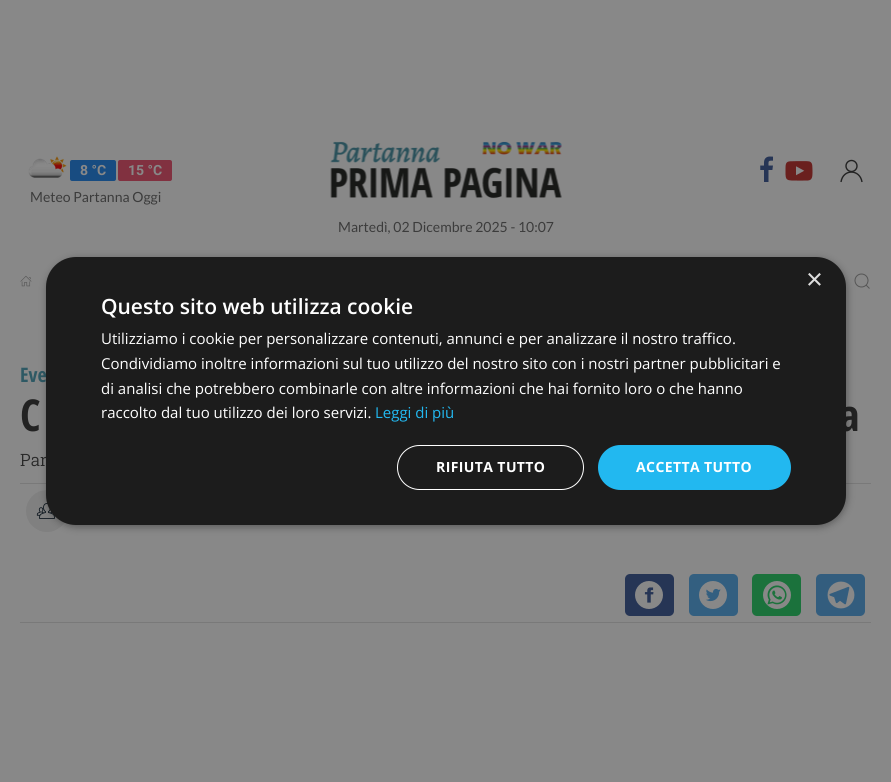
#include <cairo.h>
#include <math.h>
#include <stddef.h>


static void spaced_text(cairo_t *cr, double x, double y, const char *s, double letter, double word) {
    cairo_move_to(cr, x, y);
    while (*s) {
        char ch[5] = {0};
        int n = 0;
        do ch[n++] = *s++; while ((*s & 0xC0) == 0x80);
        cairo_show_text(cr, ch);
        cairo_rel_move_to(cr, letter + word * (*ch == ' '), 0);
    }
}

static void round_rect(cairo_t *cr, double x, double y, double w, double h, double r) {
    cairo_new_sub_path(cr);
    cairo_arc(cr, x + w - r, y + h - r, r, 0, M_PI / 2);
    cairo_arc(cr, x + r, y + h - r, r, M_PI / 2, M_PI);
    cairo_arc(cr, x + r, y + r, r, M_PI, 1.5 * M_PI);
    cairo_arc(cr, x + w - r, y + r, r, 1.5 * M_PI, 2 * M_PI);
    cairo_close_path(cr);
}

static void shadow(cairo_t *cr, double x, double y, double w, double h, double r, double blur, double alpha) {
    cairo_push_group_with_content(cr, CAIRO_CONTENT_ALPHA);
    cairo_set_operator(cr, CAIRO_OPERATOR_SOURCE);
    for (int i = 15; i >= -15 && fmin(w, h) + blur * i / 3 > 0; i -= 2) {
        double e = blur * i / 6;
        cairo_set_source_rgba(cr, 0, 0, 0, alpha * erfc((i - 1) / 8.5) / 2);
        round_rect(cr, x - e, y - e, w + 2 * e, h + 2 * e, fmax(0, fmin(r + e + blur * .6, fmin(w, h) / 2 + e)));
        cairo_fill(cr);
    }
    cairo_pattern_t *soft = cairo_pop_group(cr);
    cairo_mask(cr, soft);
    cairo_pattern_destroy(soft);
}

static void picture(cairo_t *cr, const char *path, double x, double y, double w, double h) {
    cairo_surface_t *image = cairo_image_surface_create_from_png(path);
    cairo_save(cr);
    cairo_set_source_surface(cr, image, x, y);
    cairo_rectangle(cr, x, y, w, h);
    cairo_fill(cr);
    cairo_restore(cr);
    cairo_surface_destroy(image);
}

int main(void) {
    cairo_surface_t *surface = cairo_image_surface_create(CAIRO_FORMAT_RGB24, 891, 782);
    cairo_t *cr = cairo_create(surface);
    cairo_font_options_t *options = cairo_font_options_create();
    cairo_font_options_set_hint_metrics(options, CAIRO_HINT_METRICS_OFF);
    cairo_font_options_set_hint_style(options, CAIRO_HINT_STYLE_NONE);
    cairo_set_font_options(cr, options);
    cairo_set_miter_limit(cr, 4);
    cairo_set_source_rgb(cr, 0.533, 0.533, 0.533);
    cairo_paint(cr);
    picture(cr, "img1.png", 28, 156, 39, 22);
    cairo_set_source_rgb(cr, 0.094, 0.298, 0.506);
    round_rect(cr, 70, 160, 46, 21, 2);
    cairo_fill(cr);
    cairo_select_font_face(cr, "Roboto", CAIRO_FONT_SLANT_NORMAL, CAIRO_FONT_WEIGHT_BOLD);
    cairo_set_font_size(cr, 14);
    cairo_set_source_rgb(cr, 0.533, 0.533, 0.533);
    cairo_move_to(cr, 80, 175);
    cairo_show_text(cr, "8 °C");
    cairo_set_source_rgb(cr, 0.506, 0.192, 0.251);
    round_rect(cr, 118, 160, 54, 21, 2);
    cairo_fill(cr);
    cairo_set_source_rgb(cr, 0.533, 0.533, 0.533);
    cairo_move_to(cr, 128, 175);
    cairo_show_text(cr, "15 °C");
    cairo_select_font_face(cr, "Lato", CAIRO_FONT_SLANT_NORMAL, CAIRO_FONT_WEIGHT_NORMAL);
    cairo_set_source_rgb(cr, 0.235, 0.235, 0.235);
    cairo_move_to(cr, 30, 202);
    cairo_show_text(cr, "Meteo Partanna Oggi");
    picture(cr, "img2.png", 330, 141, 232, 58);
    picture(cr, "img3.png", 760, 156, 13, 26);
    picture(cr, "img4.png", 785, 161, 28, 20);
    cairo_arc(cr, 851.5, 166, 5.5, 0, 2 * M_PI);
    cairo_set_source_rgb(cr, 0.133, 0.133, 0.133);
    cairo_set_line_width(cr, 1.4);
    cairo_stroke(cr);
    cairo_new_path(cr);
    cairo_move_to(cr, 841, 182);
    cairo_curve_to(cr, 843, 168.5, 860, 169, 862, 182);
    cairo_stroke(cr);
    cairo_set_source_rgb(cr, 0.235, 0.235, 0.235);
    cairo_move_to(cr, 338, 232);
    cairo_show_text(cr, "Martedì, 02 Dicembre 2025 - 10:07");
    picture(cr, "img5.png", 20, 275, 12, 12);
    cairo_arc(cr, 861.5, 280.5, 6.5, 0, 2 * M_PI);
    cairo_set_source_rgb(cr, 0.333, 0.333, 0.333);
    cairo_set_line_width(cr, 1);
    cairo_stroke(cr);
    cairo_new_path(cr);
    cairo_move_to(cr, 866, 285);
    cairo_line_to(cr, 869.5, 288.5);
    cairo_close_path(cr);
    cairo_stroke(cr);
    cairo_select_font_face(cr, "Open Sans Condensed", CAIRO_FONT_SLANT_NORMAL, CAIRO_FONT_WEIGHT_BOLD);
    cairo_set_font_size(cr, 20);
    cairo_set_source_rgb(cr, 0.18, 0.349, 0.392);
    cairo_move_to(cr, 20, 382);
    cairo_show_text(cr, "Eve");
    cairo_set_font_size(cr, 44);
    cairo_set_source_rgb(cr, 0.133, 0.133, 0.133);
    cairo_move_to(cr, 20, 431);
    cairo_show_text(cr, "C");
    cairo_move_to(cr, 839, 431);
    cairo_show_text(cr, "a");
    cairo_select_font_face(cr, "Roboto Slab Light", CAIRO_FONT_SLANT_NORMAL, CAIRO_FONT_WEIGHT_NORMAL);
    cairo_set_font_size(cr, 17);
    cairo_set_source_rgb(cr, 0.161, 0.161, 0.161);
    cairo_move_to(cr, 20, 466);
    cairo_show_text(cr, "Par");
    cairo_set_source_rgb(cr, 0.475, 0.475, 0.475);
    cairo_rectangle(cr, 20, 483, 851, 1);
    cairo_fill(cr);
    cairo_rectangle(cr, 20, 622, 851, 1);
    cairo_fill(cr);
    picture(cr, "img6.png", 26, 490, 39, 42);
    cairo_set_source_rgb(cr, 0.149, 0.208, 0.333);
    round_rect(cr, 625, 574, 49, 42, 5);
    cairo_fill(cr);
    picture(cr, "img7.png", 635, 581, 28, 28);
    cairo_set_source_rgb(cr, 0.2, 0.373, 0.502);
    round_rect(cr, 689, 574, 49, 42, 5);
    cairo_fill(cr);
    picture(cr, "img8.png", 699, 581, 28, 28);
    cairo_set_source_rgb(cr, 0.106, 0.447, 0.235);
    round_rect(cr, 752, 574, 49, 42, 5);
    cairo_fill(cr);
    picture(cr, "img9.png", 763, 581, 28, 28);
    cairo_set_source_rgb(cr, 0.2, 0.365, 0.494);
    round_rect(cr, 816, 574, 49, 42, 5);
    cairo_fill(cr);
    picture(cr, "img10.png", 827, 581, 28, 28);
    cairo_set_source_rgb(cr, 0, 0, 0);
    shadow(cr, 47, 259, 800, 268, 30, 4, 0.35);
    cairo_set_source_rgb(cr, 0.11, 0.11, 0.11);
    round_rect(cr, 46, 257, 800, 268, 30);
    cairo_fill(cr);
    cairo_select_font_face(cr, "Liberation Sans", CAIRO_FONT_SLANT_NORMAL, CAIRO_FONT_WEIGHT_NORMAL);
    cairo_set_font_size(cr, 29);
    cairo_set_source_rgb(cr, 0.867, 0.867, 0.867);
    cairo_move_to(cr, 806, 289);
    cairo_show_text(cr, "×");
    cairo_select_font_face(cr, "Open Sans SemiBold", CAIRO_FONT_SLANT_NORMAL, CAIRO_FONT_WEIGHT_NORMAL);
    cairo_set_font_size(cr, 21);
    cairo_set_source_rgb(cr, 1, 1, 1);
    cairo_move_to(cr, 101, 314);
    cairo_show_text(cr, "Questo sito web utilizza cookie");
    cairo_select_font_face(cr, "Open Sans", CAIRO_FONT_SLANT_NORMAL, CAIRO_FONT_WEIGHT_NORMAL);
    cairo_set_font_size(cr, 15);
    cairo_move_to(cr, 101, 344);
    cairo_show_text(cr, "Utilizziamo i cookie per personalizzare contenuti, annunci e per analizzare il nostro traffico.");
    cairo_move_to(cr, 101, 369);
    cairo_show_text(cr, "Condividiamo inoltre informazioni sul tuo utilizzo del nostro sito con i nostri partner pubblicitari e");
    cairo_move_to(cr, 101, 394);
    cairo_show_text(cr, "di analisi che potrebbero combinarle con altre informazioni che hai fornito loro o che hanno");
    cairo_move_to(cr, 101, 418);
    cairo_show_text(cr, "raccolto dal tuo utilizzo dei loro servizi.");
    cairo_set_source_rgb(cr, 0.133, 0.722, 0.941);
    cairo_move_to(cr, 375, 418);
    cairo_show_text(cr, "Leggi di più");
    round_rect(cr, 397.5, 445.5, 186, 44, 22);
    cairo_set_source_rgb(cr, 1, 1, 1);
    cairo_stroke(cr);
    cairo_select_font_face(cr, "Open Sans", CAIRO_FONT_SLANT_NORMAL, CAIRO_FONT_WEIGHT_BOLD);
    cairo_set_font_size(cr, 14);
    spaced_text(cr, 436, 472, "RIFIUTA TUTTO", 0.4, 0);
    cairo_set_source_rgb(cr, 0.133, 0.722, 0.941);
    round_rect(cr, 598, 445, 193, 45, 22.5);
    cairo_fill(cr);
    cairo_set_source_rgb(cr, 1, 1, 1);
    spaced_text(cr, 636, 472, "ACCETTA TUTTO", 0.4, 0);
    cairo_surface_write_to_png(surface, "page.png");
    cairo_font_options_destroy(options);
    cairo_destroy(cr);
    cairo_surface_destroy(surface);
    return 0;
}
